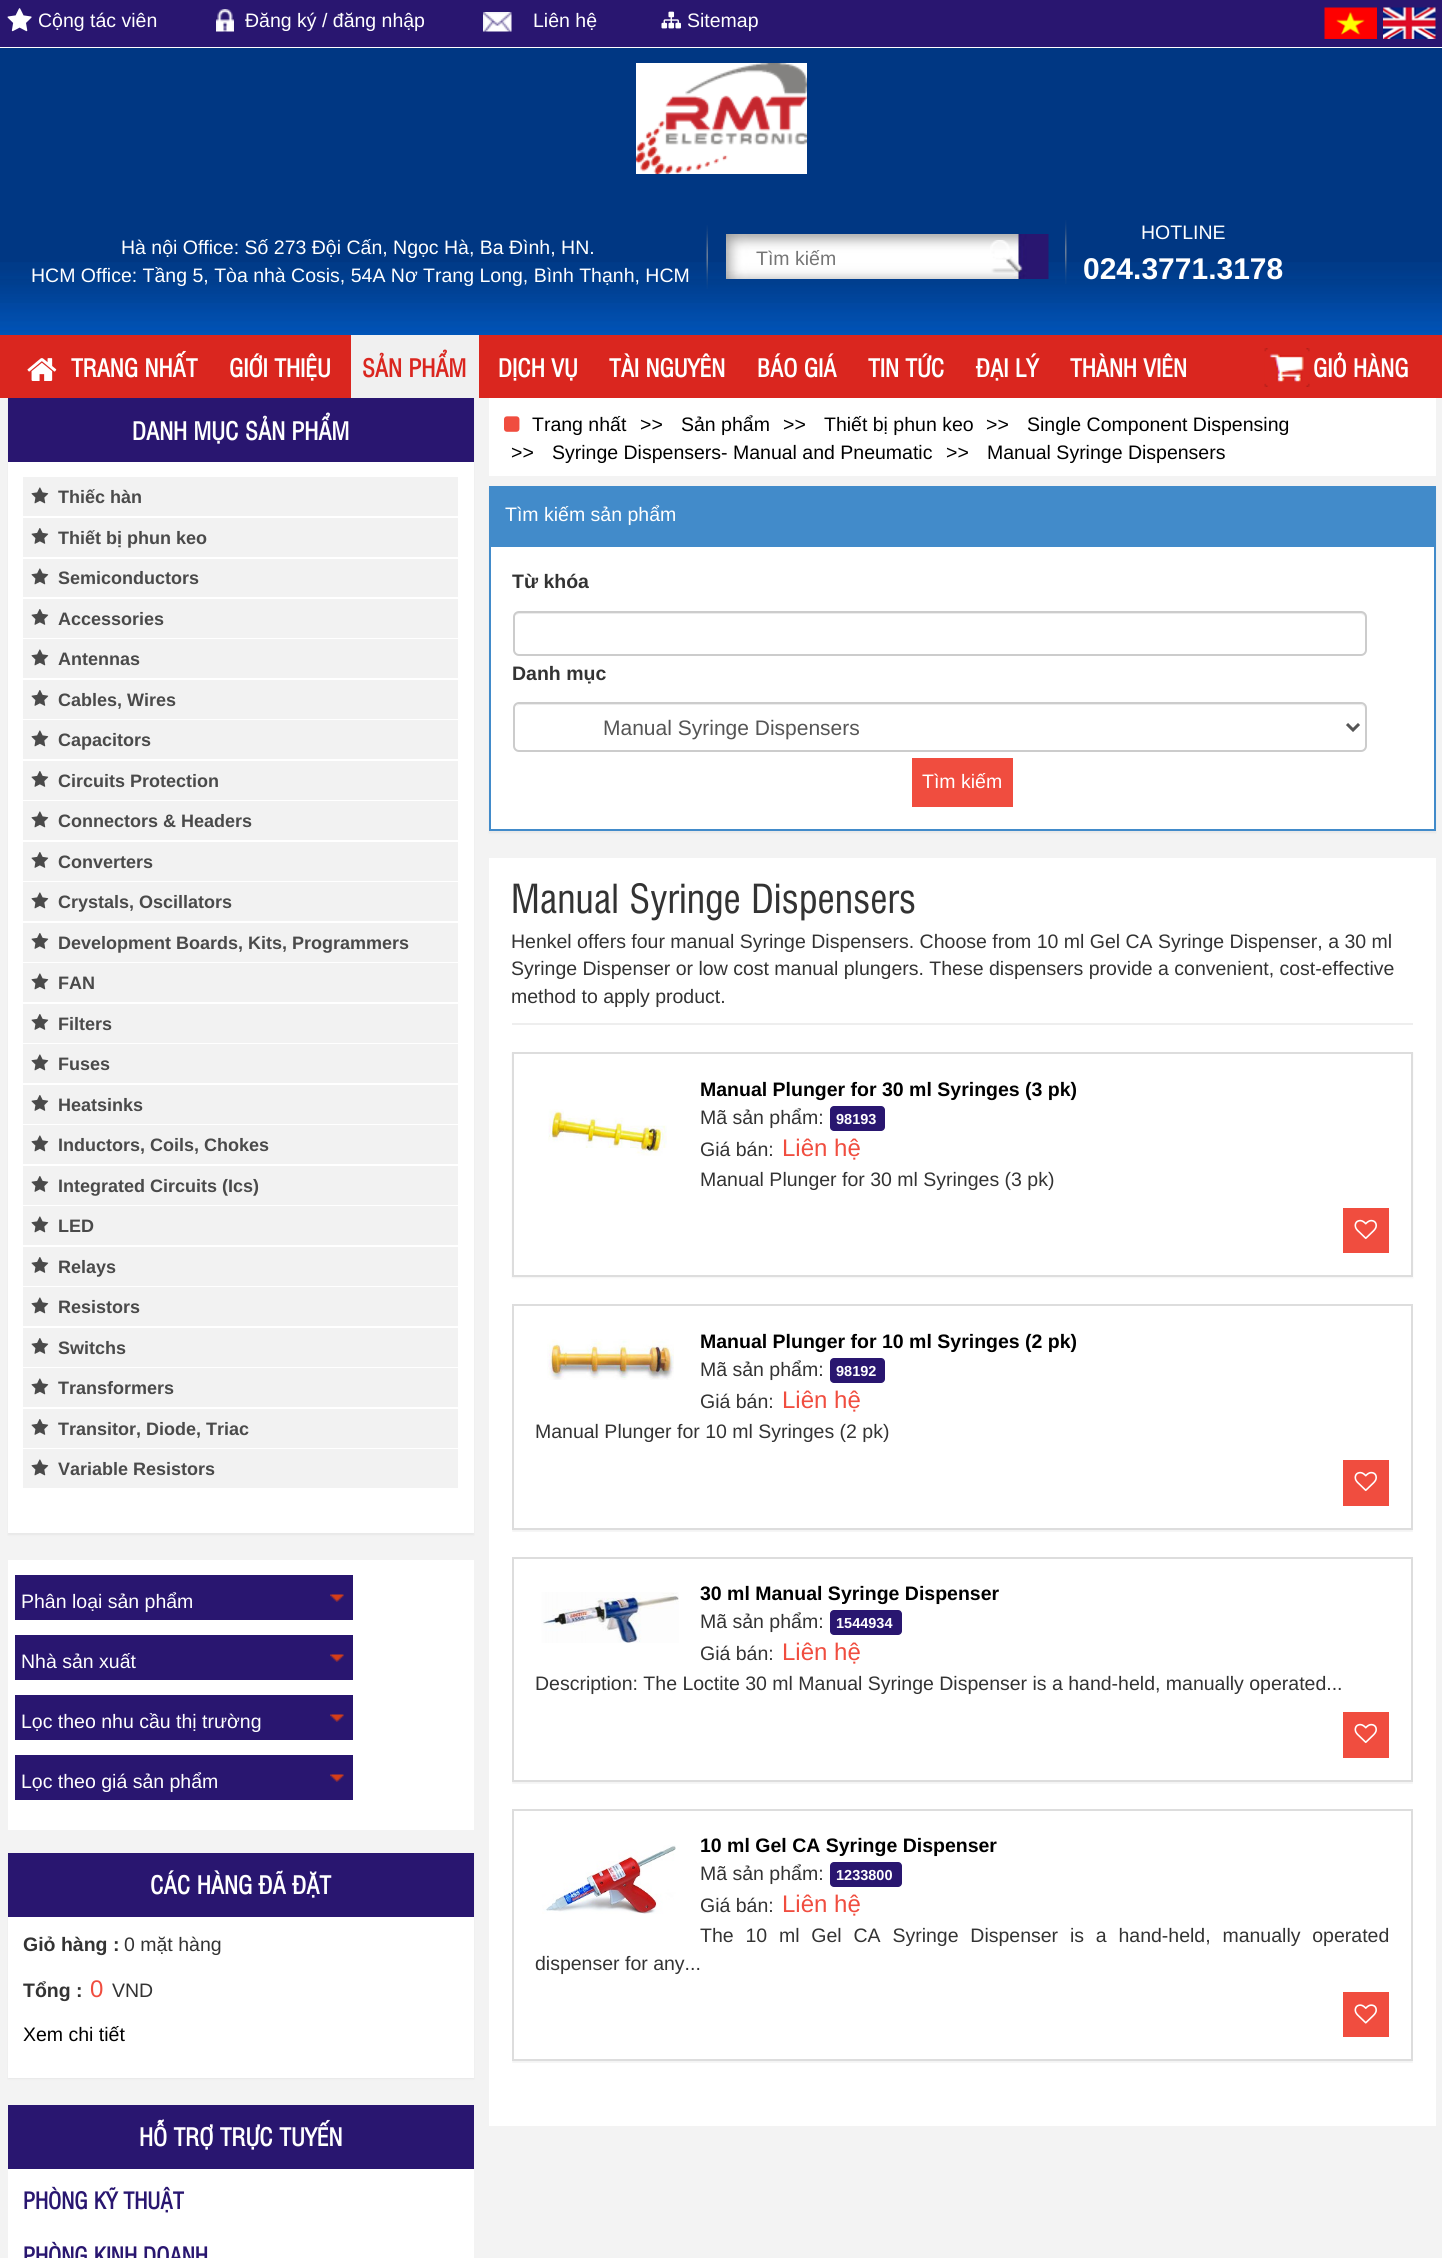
#include <cairo.h>
#include <math.h>
#include <stddef.h>


static void spaced_text(cairo_t *cr, double x, double y, const char *s, double letter, double word) {
    cairo_move_to(cr, x, y);
    while (*s) {
        char ch[5] = {0};
        int n = 0;
        do ch[n++] = *s++; while ((*s & 0xC0) == 0x80);
        cairo_show_text(cr, ch);
        cairo_rel_move_to(cr, letter + word * (*ch == ' '), 0);
    }
}

static void round_rect(cairo_t *cr, double x, double y, double w, double h, double r) {
    cairo_new_sub_path(cr);
    cairo_arc(cr, x + w - r, y + h - r, r, 0, M_PI / 2);
    cairo_arc(cr, x + r, y + h - r, r, M_PI / 2, M_PI);
    cairo_arc(cr, x + r, y + r, r, M_PI, 1.5 * M_PI);
    cairo_arc(cr, x + w - r, y + r, r, 1.5 * M_PI, 2 * M_PI);
    cairo_close_path(cr);
}

static void shadow(cairo_t *cr, double x, double y, double w, double h, double r, double blur, double alpha) {
    cairo_push_group_with_content(cr, CAIRO_CONTENT_ALPHA);
    cairo_set_operator(cr, CAIRO_OPERATOR_SOURCE);
    for (int i = 15; i >= -15 && fmin(w, h) + blur * i / 3 > 0; i -= 2) {
        double e = blur * i / 6;
        cairo_set_source_rgba(cr, 0, 0, 0, alpha * erfc((i - 1) / 8.5) / 2);
        round_rect(cr, x - e, y - e, w + 2 * e, h + 2 * e, fmax(0, fmin(r + e + blur * .6, fmin(w, h) / 2 + e)));
        cairo_fill(cr);
    }
    cairo_pattern_t *soft = cairo_pop_group(cr);
    cairo_mask(cr, soft);
    cairo_pattern_destroy(soft);
}

static void picture(cairo_t *cr, const char *path, double x, double y, double w, double h) {
    cairo_surface_t *image = cairo_image_surface_create_from_png(path);
    cairo_save(cr);
    cairo_set_source_surface(cr, image, x, y);
    cairo_rectangle(cr, x, y, w, h);
    cairo_fill(cr);
    cairo_restore(cr);
    cairo_surface_destroy(image);
}

int main(void) {
    cairo_surface_t *surface = cairo_image_surface_create(CAIRO_FORMAT_RGB24, 1442, 2258);
    cairo_t *cr = cairo_create(surface);
    cairo_font_options_t *options = cairo_font_options_create();
    cairo_font_options_set_hint_metrics(options, CAIRO_HINT_METRICS_OFF);
    cairo_font_options_set_hint_style(options, CAIRO_HINT_STYLE_NONE);
    cairo_set_font_options(cr, options);
    cairo_set_miter_limit(cr, 4);
    cairo_set_source_rgb(cr, 0.953, 0.953, 0.953);
    cairo_paint(cr);
    cairo_set_source_rgb(cr, 0.161, 0.086, 0.439);
    cairo_rectangle(cr, 0, 0, 1442, 47);
    cairo_fill(cr);
    cairo_set_source_rgb(cr, 1, 1, 1);
    cairo_rectangle(cr, 0, 47, 1442, 1);
    cairo_fill(cr);
    picture(cr, "img1.png", 7, 8, 25, 24);
    cairo_select_font_face(cr, "Liberation Sans", CAIRO_FONT_SLANT_NORMAL, CAIRO_FONT_WEIGHT_NORMAL);
    cairo_set_font_size(cr, 19.5);
    cairo_move_to(cr, 38, 27);
    cairo_show_text(cr, "Cộng tác viên");
    picture(cr, "img2.png", 216, 9, 18, 23);
    cairo_move_to(cr, 245, 27);
    cairo_show_text(cr, "Đăng ký / đăng nhập");
    picture(cr, "img3.png", 483, 12, 29, 20);
    cairo_move_to(cr, 533, 27);
    cairo_show_text(cr, "Liên hệ");
    picture(cr, "img4.png", 661, 11, 20, 18);
    cairo_move_to(cr, 687, 27);
    cairo_show_text(cr, "Sitemap");
    picture(cr, "img5.png", 1324, 7, 53, 32);
    picture(cr, "img6.png", 1383, 7, 53, 32);
    cairo_set_source_rgb(cr, 0, 0.216, 0.514);
    cairo_rectangle(cr, 0, 48, 1442, 214);
    cairo_fill(cr);
    picture(cr, "img7.png", 0, 262, 1442, 73);
    picture(cr, "img8.png", 636, 63, 171, 111);
    picture(cr, "img9.png", 706, 225, 2, 64);
    cairo_set_source_rgb(cr, 1, 1, 1);
    cairo_move_to(cr, 121, 254);
    cairo_show_text(cr, "Hà nội Office: Số 273 Đội Cấn, Ngọc Hà, Ba Đình, HN.");
    cairo_move_to(cr, 31, 282);
    cairo_show_text(cr, "HCM Office: Tầng 5, Tòa nhà Cosis, 54A Nơ Trang Long, Bình Thạnh, HCM");
    picture(cr, "img10.png", 1065, 220, 2, 64);
    picture(cr, "img11.png", 726, 234, 323, 45);
    cairo_set_source_rgb(cr, 0.459, 0.459, 0.459);
    cairo_move_to(cr, 756, 265);
    cairo_show_text(cr, "Tìm kiếm");
    picture(cr, "img12.png", 990, 240, 33, 33);
    cairo_set_source_rgb(cr, 1, 1, 1);
    cairo_move_to(cr, 1141, 239);
    cairo_show_text(cr, "HOTLINE");
    cairo_select_font_face(cr, "Liberation Sans", CAIRO_FONT_SLANT_NORMAL, CAIRO_FONT_WEIGHT_BOLD);
    cairo_set_font_size(cr, 30);
    cairo_move_to(cr, 1083, 279);
    cairo_show_text(cr, "024.3771.3178");
    cairo_set_source_rgb(cr, 0.855, 0.149, 0.122);
    cairo_rectangle(cr, 0, 335, 1442, 63);
    cairo_fill(cr);
    picture(cr, "img13.png", 27, 358, 30, 23);
    cairo_select_font_face(cr, "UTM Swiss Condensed", CAIRO_FONT_SLANT_NORMAL, CAIRO_FONT_WEIGHT_BOLD);
    cairo_set_font_size(cr, 24);
    cairo_set_source_rgb(cr, 1, 1, 1);
    cairo_move_to(cr, 71, 377);
    cairo_show_text(cr, "TRANG NHẤT");
    cairo_move_to(cr, 229, 377);
    cairo_show_text(cr, "GIỚI THIỆU");
    cairo_set_source_rgb(cr, 0, 0, 0);
    shadow(cr, 8, 399, 466, 1136, 0, 1, 0.05);
    cairo_set_source_rgb(cr, 0.941, 0.941, 0.941);
    cairo_rectangle(cr, 351, 335, 128, 63);
    cairo_fill(cr);
    cairo_set_source_rgb(cr, 0.855, 0.149, 0.122);
    cairo_move_to(cr, 362, 377);
    cairo_show_text(cr, "SẢN PHẨM");
    cairo_set_source_rgb(cr, 1, 1, 1);
    cairo_move_to(cr, 498, 377);
    cairo_show_text(cr, "DỊCH VỤ");
    cairo_move_to(cr, 609, 377);
    cairo_show_text(cr, "TÀI NGUYÊN");
    cairo_move_to(cr, 757, 377);
    cairo_show_text(cr, "BÁO GIÁ");
    cairo_move_to(cr, 868, 377);
    cairo_show_text(cr, "TIN TỨC");
    cairo_move_to(cr, 976, 377);
    cairo_show_text(cr, "ĐẠI LÝ");
    cairo_move_to(cr, 1070, 377);
    cairo_show_text(cr, "THÀNH VIÊN");
    picture(cr, "img14.png", 1264, 348, 46, 39);
    cairo_move_to(cr, 1313, 377);
    cairo_show_text(cr, "GIỎ HÀNG");
    cairo_rectangle(cr, 8, 462, 466, 1071);
    cairo_fill(cr);
    cairo_set_source_rgb(cr, 0.161, 0.086, 0.439);
    cairo_rectangle(cr, 8, 398, 466, 64);
    cairo_fill(cr);
    cairo_set_source_rgb(cr, 1, 1, 1);
    cairo_move_to(cr, 132, 440);
    cairo_show_text(cr, "DANH MỤC SẢN PHẨM");
    cairo_set_source_rgb(cr, 0.949, 0.949, 0.949);
    cairo_rectangle(cr, 23, 477, 435, 39);
    cairo_fill(cr);
    picture(cr, "img15.png", 31, 487, 18, 17);
    cairo_select_font_face(cr, "Liberation Sans", CAIRO_FONT_SLANT_NORMAL, CAIRO_FONT_WEIGHT_BOLD);
    cairo_set_font_size(cr, 18);
    cairo_set_source_rgb(cr, 0.29, 0.29, 0.29);
    cairo_move_to(cr, 58, 503);
    cairo_show_text(cr, "Thiếc hàn");
    cairo_set_source_rgb(cr, 0.949, 0.949, 0.949);
    cairo_rectangle(cr, 23, 518, 435, 39);
    cairo_fill(cr);
    picture(cr, "img16.png", 31, 528, 18, 16);
    cairo_set_source_rgb(cr, 0.29, 0.29, 0.29);
    cairo_move_to(cr, 58, 544);
    cairo_show_text(cr, "Thiết bị phun keo");
    cairo_set_source_rgb(cr, 0.949, 0.949, 0.949);
    cairo_rectangle(cr, 23, 559, 435, 38);
    cairo_fill(cr);
    picture(cr, "img15.png", 31, 568, 18, 17);
    cairo_set_source_rgb(cr, 0.29, 0.29, 0.29);
    cairo_move_to(cr, 58, 584);
    cairo_show_text(cr, "Semiconductors");
    cairo_set_source_rgb(cr, 0.949, 0.949, 0.949);
    cairo_rectangle(cr, 23, 599, 435, 39);
    cairo_fill(cr);
    picture(cr, "img16.png", 31, 609, 18, 16);
    cairo_set_source_rgb(cr, 0.29, 0.29, 0.29);
    cairo_move_to(cr, 58, 625);
    cairo_show_text(cr, "Accessories");
    cairo_set_source_rgb(cr, 0.949, 0.949, 0.949);
    cairo_rectangle(cr, 23, 639, 435, 39);
    cairo_fill(cr);
    picture(cr, "img15.png", 31, 649, 18, 17);
    cairo_set_source_rgb(cr, 0.29, 0.29, 0.29);
    cairo_move_to(cr, 58, 665);
    cairo_show_text(cr, "Antennas");
    cairo_set_source_rgb(cr, 0.949, 0.949, 0.949);
    cairo_rectangle(cr, 23, 680, 435, 39);
    cairo_fill(cr);
    picture(cr, "img16.png", 31, 690, 18, 16);
    cairo_set_source_rgb(cr, 0.29, 0.29, 0.29);
    cairo_move_to(cr, 58, 706);
    cairo_show_text(cr, "Cables, Wires");
    cairo_set_source_rgb(cr, 0.949, 0.949, 0.949);
    cairo_rectangle(cr, 23, 720, 435, 39);
    cairo_fill(cr);
    picture(cr, "img15.png", 31, 730, 18, 17);
    cairo_set_source_rgb(cr, 0.29, 0.29, 0.29);
    cairo_move_to(cr, 58, 746);
    cairo_show_text(cr, "Capacitors");
    cairo_set_source_rgb(cr, 0.949, 0.949, 0.949);
    cairo_rectangle(cr, 23, 761, 435, 39);
    cairo_fill(cr);
    picture(cr, "img16.png", 31, 771, 18, 16);
    cairo_set_source_rgb(cr, 0.29, 0.29, 0.29);
    cairo_move_to(cr, 58, 787);
    cairo_show_text(cr, "Circuits Protection");
    cairo_set_source_rgb(cr, 0.949, 0.949, 0.949);
    cairo_rectangle(cr, 23, 801, 435, 39);
    cairo_fill(cr);
    picture(cr, "img15.png", 31, 811, 18, 17);
    cairo_set_source_rgb(cr, 0.29, 0.29, 0.29);
    cairo_move_to(cr, 58, 827);
    cairo_show_text(cr, "Connectors & Headers");
    cairo_set_source_rgb(cr, 0.949, 0.949, 0.949);
    cairo_rectangle(cr, 23, 842, 435, 39);
    cairo_fill(cr);
    picture(cr, "img16.png", 31, 852, 18, 16);
    cairo_set_source_rgb(cr, 0.29, 0.29, 0.29);
    cairo_move_to(cr, 58, 868);
    cairo_show_text(cr, "Converters");
    cairo_set_source_rgb(cr, 0.949, 0.949, 0.949);
    cairo_rectangle(cr, 23, 882, 435, 39);
    cairo_fill(cr);
    picture(cr, "img15.png", 31, 892, 18, 17);
    cairo_set_source_rgb(cr, 0.29, 0.29, 0.29);
    cairo_move_to(cr, 58, 908);
    cairo_show_text(cr, "Crystals, Oscillators");
    cairo_set_source_rgb(cr, 0.949, 0.949, 0.949);
    cairo_rectangle(cr, 23, 923, 435, 39);
    cairo_fill(cr);
    picture(cr, "img16.png", 31, 933, 18, 16);
    cairo_set_source_rgb(cr, 0.29, 0.29, 0.29);
    cairo_move_to(cr, 58, 949);
    cairo_show_text(cr, "Development Boards, Kits, Programmers");
    cairo_set_source_rgb(cr, 0.949, 0.949, 0.949);
    cairo_rectangle(cr, 23, 963, 435, 39);
    cairo_fill(cr);
    picture(cr, "img15.png", 31, 973, 18, 17);
    cairo_set_source_rgb(cr, 0.29, 0.29, 0.29);
    cairo_move_to(cr, 58, 989);
    cairo_show_text(cr, "FAN");
    cairo_set_source_rgb(cr, 0.949, 0.949, 0.949);
    cairo_rectangle(cr, 23, 1004, 435, 39);
    cairo_fill(cr);
    picture(cr, "img16.png", 31, 1014, 18, 16);
    cairo_set_source_rgb(cr, 0.29, 0.29, 0.29);
    cairo_move_to(cr, 58, 1030);
    cairo_show_text(cr, "Filters");
    cairo_set_source_rgb(cr, 0.949, 0.949, 0.949);
    cairo_rectangle(cr, 23, 1044, 435, 39);
    cairo_fill(cr);
    picture(cr, "img15.png", 31, 1054, 18, 17);
    cairo_set_source_rgb(cr, 0.29, 0.29, 0.29);
    cairo_move_to(cr, 58, 1070);
    cairo_show_text(cr, "Fuses");
    cairo_set_source_rgb(cr, 0.949, 0.949, 0.949);
    cairo_rectangle(cr, 23, 1085, 435, 39);
    cairo_fill(cr);
    picture(cr, "img16.png", 31, 1095, 18, 16);
    cairo_set_source_rgb(cr, 0.29, 0.29, 0.29);
    cairo_move_to(cr, 58, 1111);
    cairo_show_text(cr, "Heatsinks");
    cairo_set_source_rgb(cr, 0.949, 0.949, 0.949);
    cairo_rectangle(cr, 23, 1125, 435, 39);
    cairo_fill(cr);
    picture(cr, "img15.png", 31, 1135, 18, 17);
    cairo_set_source_rgb(cr, 0.29, 0.29, 0.29);
    cairo_move_to(cr, 58, 1151);
    cairo_show_text(cr, "Inductors, Coils, Chokes");
    cairo_set_source_rgb(cr, 0.949, 0.949, 0.949);
    cairo_rectangle(cr, 23, 1166, 435, 39);
    cairo_fill(cr);
    picture(cr, "img16.png", 31, 1176, 18, 16);
    cairo_set_source_rgb(cr, 0.29, 0.29, 0.29);
    cairo_move_to(cr, 58, 1192);
    cairo_show_text(cr, "Integrated Circuits (Ics)");
    cairo_set_source_rgb(cr, 0.949, 0.949, 0.949);
    cairo_rectangle(cr, 23, 1206, 435, 39);
    cairo_fill(cr);
    picture(cr, "img15.png", 31, 1216, 18, 17);
    cairo_set_source_rgb(cr, 0.29, 0.29, 0.29);
    cairo_move_to(cr, 58, 1232);
    cairo_show_text(cr, "LED");
    cairo_set_source_rgb(cr, 0.949, 0.949, 0.949);
    cairo_rectangle(cr, 23, 1247, 435, 39);
    cairo_fill(cr);
    picture(cr, "img16.png", 31, 1257, 18, 16);
    cairo_set_source_rgb(cr, 0.29, 0.29, 0.29);
    cairo_move_to(cr, 58, 1273);
    cairo_show_text(cr, "Relays");
    cairo_set_source_rgb(cr, 0.949, 0.949, 0.949);
    cairo_rectangle(cr, 23, 1287, 435, 39);
    cairo_fill(cr);
    picture(cr, "img15.png", 31, 1297, 18, 17);
    cairo_set_source_rgb(cr, 0.29, 0.29, 0.29);
    cairo_move_to(cr, 58, 1313);
    cairo_show_text(cr, "Resistors");
    cairo_set_source_rgb(cr, 0.949, 0.949, 0.949);
    cairo_rectangle(cr, 23, 1328, 435, 39);
    cairo_fill(cr);
    picture(cr, "img16.png", 31, 1338, 18, 16);
    cairo_set_source_rgb(cr, 0.29, 0.29, 0.29);
    cairo_move_to(cr, 58, 1354);
    cairo_show_text(cr, "Switchs");
    cairo_set_source_rgb(cr, 0.949, 0.949, 0.949);
    cairo_rectangle(cr, 23, 1368, 435, 39);
    cairo_fill(cr);
    picture(cr, "img15.png", 31, 1378, 18, 17);
    cairo_set_source_rgb(cr, 0.29, 0.29, 0.29);
    cairo_move_to(cr, 58, 1394);
    cairo_show_text(cr, "Transformers");
    cairo_set_source_rgb(cr, 0.949, 0.949, 0.949);
    cairo_rectangle(cr, 23, 1409, 435, 39);
    cairo_fill(cr);
    picture(cr, "img16.png", 31, 1419, 18, 16);
    cairo_set_source_rgb(cr, 0.29, 0.29, 0.29);
    cairo_move_to(cr, 58, 1435);
    cairo_show_text(cr, "Transitor, Diode, Triac");
    cairo_set_source_rgb(cr, 0.949, 0.949, 0.949);
    cairo_rectangle(cr, 23, 1449, 435, 39);
    cairo_fill(cr);
    picture(cr, "img15.png", 31, 1459, 18, 17);
    cairo_set_source_rgb(cr, 0.29, 0.29, 0.29);
    cairo_move_to(cr, 58, 1475);
    cairo_show_text(cr, "Variable Resistors");
    cairo_set_source_rgb(cr, 1, 1, 1);
    cairo_rectangle(cr, 8, 1560, 466, 270);
    cairo_fill(cr);
    cairo_set_source_rgb(cr, 0.161, 0.086, 0.439);
    cairo_rectangle(cr, 15, 1575, 338, 45);
    cairo_fill(cr);
    picture(cr, "img17.png", 330, 1594, 14, 8);
    cairo_select_font_face(cr, "Liberation Sans", CAIRO_FONT_SLANT_NORMAL, CAIRO_FONT_WEIGHT_NORMAL);
    cairo_set_font_size(cr, 19.5);
    cairo_set_source_rgb(cr, 1, 1, 1);
    cairo_move_to(cr, 21, 1608);
    cairo_show_text(cr, "Phân loại sản phẩm");
    cairo_set_source_rgb(cr, 0.161, 0.086, 0.439);
    cairo_rectangle(cr, 15, 1635, 338, 45);
    cairo_fill(cr);
    picture(cr, "img17.png", 330, 1654, 14, 8);
    cairo_set_source_rgb(cr, 1, 1, 1);
    cairo_move_to(cr, 21, 1668);
    cairo_show_text(cr, "Nhà sản xuất");
    cairo_set_source_rgb(cr, 0.161, 0.086, 0.439);
    cairo_rectangle(cr, 15, 1695, 338, 45);
    cairo_fill(cr);
    picture(cr, "img17.png", 330, 1714, 14, 8);
    cairo_set_source_rgb(cr, 1, 1, 1);
    cairo_move_to(cr, 21, 1728);
    cairo_show_text(cr, "Lọc theo nhu cầu thị trường");
    cairo_set_source_rgb(cr, 0.161, 0.086, 0.439);
    cairo_rectangle(cr, 15, 1755, 338, 45);
    cairo_fill(cr);
    picture(cr, "img17.png", 330, 1774, 14, 8);
    cairo_set_source_rgb(cr, 1, 1, 1);
    cairo_move_to(cr, 21, 1788);
    cairo_show_text(cr, "Lọc theo giá sản phẩm");
    cairo_set_source_rgb(cr, 0, 0, 0);
    shadow(cr, 8, 1854, 466, 225, 0, 1, 0.05);
    cairo_set_source_rgb(cr, 1, 1, 1);
    cairo_rectangle(cr, 8, 1917, 466, 161);
    cairo_fill(cr);
    cairo_set_source_rgb(cr, 0.161, 0.086, 0.439);
    cairo_rectangle(cr, 8, 1853, 466, 64);
    cairo_fill(cr);
    cairo_select_font_face(cr, "UTM Swiss Condensed", CAIRO_FONT_SLANT_NORMAL, CAIRO_FONT_WEIGHT_BOLD);
    cairo_set_font_size(cr, 24);
    cairo_set_source_rgb(cr, 1, 1, 1);
    cairo_move_to(cr, 150, 1894);
    cairo_show_text(cr, "CÁC HÀNG ĐÃ ĐẶT");
    cairo_select_font_face(cr, "Liberation Sans", CAIRO_FONT_SLANT_NORMAL, CAIRO_FONT_WEIGHT_BOLD);
    cairo_set_font_size(cr, 19.5);
    cairo_set_source_rgb(cr, 0.2, 0.2, 0.2);
    cairo_move_to(cr, 23, 1951);
    cairo_show_text(cr, "Giỏ hàng :");
    cairo_select_font_face(cr, "Liberation Sans", CAIRO_FONT_SLANT_NORMAL, CAIRO_FONT_WEIGHT_NORMAL);
    cairo_move_to(cr, 124, 1951);
    cairo_show_text(cr, "0 mặt hàng");
    cairo_select_font_face(cr, "Liberation Sans", CAIRO_FONT_SLANT_NORMAL, CAIRO_FONT_WEIGHT_BOLD);
    cairo_move_to(cr, 23, 1997);
    cairo_show_text(cr, "Tổng :");
    cairo_select_font_face(cr, "Liberation Sans", CAIRO_FONT_SLANT_NORMAL, CAIRO_FONT_WEIGHT_NORMAL);
    cairo_set_font_size(cr, 24);
    cairo_set_source_rgb(cr, 0.941, 0.302, 0.247);
    cairo_move_to(cr, 90, 1997);
    cairo_show_text(cr, "0");
    cairo_set_font_size(cr, 19.5);
    cairo_set_source_rgb(cr, 0.2, 0.2, 0.2);
    cairo_move_to(cr, 112, 1997);
    cairo_show_text(cr, "VND");
    cairo_set_source_rgb(cr, 0, 0, 0);
    cairo_move_to(cr, 23, 2041);
    cairo_show_text(cr, "Xem chi tiết");
    cairo_set_source_rgb(cr, 1, 1, 1);
    cairo_rectangle(cr, 8, 2169, 466, 89);
    cairo_fill(cr);
    cairo_set_source_rgb(cr, 0.161, 0.086, 0.439);
    cairo_rectangle(cr, 8, 2105, 466, 64);
    cairo_fill(cr);
    cairo_select_font_face(cr, "UTM Swiss Condensed", CAIRO_FONT_SLANT_NORMAL, CAIRO_FONT_WEIGHT_BOLD);
    cairo_set_font_size(cr, 24);
    cairo_set_source_rgb(cr, 1, 1, 1);
    cairo_move_to(cr, 139, 2146);
    cairo_show_text(cr, "HỖ TRỢ TRỰC TUYẾN");
    cairo_set_font_size(cr, 22.5);
    cairo_set_source_rgb(cr, 0.161, 0.086, 0.439);
    cairo_move_to(cr, 23, 2209);
    cairo_show_text(cr, "PHÒNG KỸ THUẬT");
    cairo_move_to(cr, 23, 2264);
    cairo_show_text(cr, "PHÒNG KINH DOANH");
    cairo_set_source_rgb(cr, 1, 1, 1);
    cairo_rectangle(cr, 489, 398, 947, 78);
    cairo_fill(cr);
    picture(cr, "img18.png", 504, 416, 16, 16);
    cairo_select_font_face(cr, "Liberation Sans", CAIRO_FONT_SLANT_NORMAL, CAIRO_FONT_WEIGHT_NORMAL);
    cairo_set_font_size(cr, 19.5);
    cairo_set_source_rgb(cr, 0, 0, 0);
    cairo_move_to(cr, 532, 431);
    cairo_show_text(cr, "Trang nhất");
    cairo_move_to(cr, 640, 431);
    cairo_show_text(cr, ">>");
    cairo_move_to(cr, 681, 431);
    cairo_show_text(cr, "Sản phẩm");
    cairo_move_to(cr, 783, 431);
    cairo_show_text(cr, ">>");
    cairo_move_to(cr, 824, 431);
    cairo_show_text(cr, "Thiết bị phun keo");
    cairo_move_to(cr, 986, 431);
    cairo_show_text(cr, ">>");
    cairo_move_to(cr, 1027, 431);
    cairo_show_text(cr, "Single Component Dispensing");
    cairo_move_to(cr, 511, 459);
    cairo_show_text(cr, ">>");
    cairo_move_to(cr, 552, 459);
    cairo_show_text(cr, "Syringe Dispensers- Manual and Pneumatic");
    cairo_move_to(cr, 946, 459);
    cairo_show_text(cr, ">>");
    cairo_move_to(cr, 987, 459);
    cairo_show_text(cr, "Manual Syringe Dispensers");
    cairo_set_source_rgb(cr, 0, 0, 0);
    shadow(cr, 489, 488, 947, 345, 0, 1, 0.05);
    cairo_set_source_rgb(cr, 1, 1, 1);
    cairo_rectangle(cr, 491, 547, 943, 282);
    cairo_fill(cr);
    cairo_rectangle(cr, 490, 487, 945, 343);
    cairo_set_source_rgb(cr, 0.259, 0.545, 0.792);
    cairo_stroke(cr);
    cairo_rectangle(cr, 491, 488, 943, 59);
    cairo_fill(cr);
    cairo_set_source_rgb(cr, 1, 1, 1);
    cairo_move_to(cr, 505, 521);
    cairo_show_text(cr, "Tìm kiếm sản phẩm");
    cairo_select_font_face(cr, "Liberation Sans", CAIRO_FONT_SLANT_NORMAL, CAIRO_FONT_WEIGHT_BOLD);
    cairo_set_source_rgb(cr, 0.2, 0.2, 0.2);
    cairo_move_to(cr, 512, 588);
    cairo_show_text(cr, "Từ khóa");
    cairo_set_source_rgb(cr, 0.925, 0.925, 0.925);
    cairo_new_path(cr);
    cairo_move_to(cr, 519, 614);
    cairo_line_to(cr, 1360, 614);
    cairo_curve_to(cr, 1363, 614, 1365, 616, 1365, 618);
    cairo_line_to(cr, 1365, 617);
    cairo_curve_to(cr, 1365, 614, 1363, 612, 1360, 612);
    cairo_line_to(cr, 520, 612);
    cairo_curve_to(cr, 518, 612, 516, 614, 515, 616);
    cairo_curve_to(cr, 516, 615, 518, 614, 519, 614);
    cairo_close_path(cr);
    cairo_fill(cr);
    round_rect(cr, 514, 612, 852, 43, 5);
    cairo_set_source_rgb(cr, 0.8, 0.8, 0.8);
    cairo_stroke(cr);
    cairo_set_source_rgb(cr, 0.2, 0.2, 0.2);
    cairo_move_to(cr, 512, 680);
    cairo_show_text(cr, "Danh mục");
    cairo_set_source_rgb(cr, 0.925, 0.925, 0.925);
    cairo_new_path(cr);
    cairo_move_to(cr, 519, 705);
    cairo_line_to(cr, 1360, 705);
    cairo_curve_to(cr, 1363, 705, 1365, 707, 1365, 710);
    cairo_line_to(cr, 1365, 709);
    cairo_curve_to(cr, 1365, 706, 1363, 704, 1360, 704);
    cairo_line_to(cr, 520, 704);
    cairo_curve_to(cr, 518, 704, 517, 705, 516, 706);
    cairo_close_path(cr);
    cairo_fill(cr);
    round_rect(cr, 514, 703, 852, 48, 5);
    cairo_set_source_rgb(cr, 0.8, 0.8, 0.8);
    cairo_stroke(cr);
    cairo_new_path(cr);
    cairo_move_to(cr, 1347, 724);
    cairo_line_to(cr, 1353, 730);
    cairo_line_to(cr, 1359, 724);
    cairo_set_source_rgb(cr, 0.333, 0.333, 0.333);
    cairo_set_line_width(cr, 3);
    cairo_stroke(cr);
    cairo_select_font_face(cr, "Liberation Sans", CAIRO_FONT_SLANT_NORMAL, CAIRO_FONT_WEIGHT_NORMAL);
    cairo_set_font_size(cr, 21);
    cairo_move_to(cr, 603, 735);
    cairo_show_text(cr, "Manual Syringe Dispensers");
    cairo_set_source_rgb(cr, 0.941, 0.302, 0.247);
    cairo_rectangle(cr, 912, 758, 101, 49);
    cairo_fill(cr);
    cairo_set_font_size(cr, 19.5);
    cairo_set_source_rgb(cr, 1, 1, 1);
    cairo_move_to(cr, 922, 788);
    cairo_show_text(cr, "Tìm kiếm");
    cairo_rectangle(cr, 489, 858, 947, 1268);
    cairo_fill(cr);
    cairo_set_source_rgb(cr, 0.933, 0.933, 0.933);
    cairo_rectangle(cr, 512, 1023, 901, 2);
    cairo_fill(cr);
    cairo_select_font_face(cr, "UTM Swiss Condensed", CAIRO_FONT_SLANT_NORMAL, CAIRO_FONT_WEIGHT_NORMAL);
    cairo_set_font_size(cr, 39);
    cairo_set_source_rgb(cr, 0.2, 0.2, 0.2);
    cairo_move_to(cr, 511, 913);
    cairo_show_text(cr, "Manual Syringe Dispensers");
    cairo_select_font_face(cr, "Liberation Sans", CAIRO_FONT_SLANT_NORMAL, CAIRO_FONT_WEIGHT_NORMAL);
    cairo_set_font_size(cr, 19.5);
    cairo_move_to(cr, 511, 948);
    cairo_show_text(cr, "Henkel offers four manual Syringe Dispensers. Choose from 10 ml Gel CA Syringe Dispenser, a 30 ml");
    cairo_move_to(cr, 511, 975);
    cairo_show_text(cr, "Syringe Dispenser or low cost manual plungers. These dispensers provide a convenient, cost-effective");
    cairo_move_to(cr, 511, 1003);
    cairo_show_text(cr, "method to apply product.");
    cairo_set_source_rgb(cr, 0, 0, 0);
    shadow(cr, 512, 1053, 901, 225, 0, 1, 0.05);
    cairo_set_source_rgb(cr, 1, 1, 1);
    cairo_rectangle(cr, 513, 1053, 899, 223);
    cairo_fill_preserve(cr);
    cairo_set_source_rgb(cr, 0.867, 0.867, 0.867);
    cairo_set_line_width(cr, 2);
    cairo_stroke(cr);
    picture(cr, "img19.png", 548, 1109, 119, 47);
    cairo_select_font_face(cr, "Liberation Sans", CAIRO_FONT_SLANT_NORMAL, CAIRO_FONT_WEIGHT_BOLD);
    cairo_set_source_rgb(cr, 0, 0, 0);
    cairo_move_to(cr, 700, 1096);
    cairo_show_text(cr, "Manual Plunger for 30 ml Syringes (3 pk)");
    cairo_select_font_face(cr, "Liberation Sans", CAIRO_FONT_SLANT_NORMAL, CAIRO_FONT_WEIGHT_NORMAL);
    cairo_set_source_rgb(cr, 0.2, 0.2, 0.2);
    cairo_move_to(cr, 700, 1124);
    cairo_show_text(cr, "Mã sản phẩm:");
    cairo_set_source_rgb(cr, 0.161, 0.086, 0.439);
    round_rect(cr, 830, 1106, 55, 25, 4);
    cairo_fill(cr);
    cairo_select_font_face(cr, "Liberation Sans", CAIRO_FONT_SLANT_NORMAL, CAIRO_FONT_WEIGHT_BOLD);
    cairo_set_font_size(cr, 14.5);
    cairo_set_source_rgb(cr, 1, 1, 1);
    cairo_move_to(cr, 836, 1124);
    cairo_show_text(cr, "98193");
    cairo_select_font_face(cr, "Liberation Sans", CAIRO_FONT_SLANT_NORMAL, CAIRO_FONT_WEIGHT_NORMAL);
    cairo_set_font_size(cr, 19.5);
    cairo_set_source_rgb(cr, 0.2, 0.2, 0.2);
    cairo_move_to(cr, 700, 1156);
    cairo_show_text(cr, "Giá bán:");
    cairo_set_font_size(cr, 24);
    cairo_set_source_rgb(cr, 0.941, 0.302, 0.247);
    cairo_move_to(cr, 782, 1156);
    cairo_show_text(cr, "Liên hệ");
    cairo_set_font_size(cr, 19.5);
    cairo_set_source_rgb(cr, 0.2, 0.2, 0.2);
    cairo_move_to(cr, 700, 1186);
    cairo_show_text(cr, "Manual Plunger for 30 ml Syringes (3 pk)");
    cairo_set_source_rgb(cr, 0.941, 0.302, 0.247);
    cairo_rectangle(cr, 1343, 1208, 46, 45);
    cairo_fill(cr);
    picture(cr, "img20.png", 1354, 1219, 23, 21);
    cairo_save(cr);
    cairo_rectangle(cr, 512, 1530, 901, 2);
    cairo_clip(cr);
    cairo_set_source_rgb(cr, 0, 0, 0);
    shadow(cr, 512, 1305, 901, 227, 0, 1, 0.05);
    cairo_restore(cr);
    cairo_rectangle(cr, 513, 1305, 899, 224);
    cairo_set_source_rgb(cr, 0.867, 0.867, 0.867);
    cairo_stroke(cr);
    cairo_select_font_face(cr, "Liberation Sans", CAIRO_FONT_SLANT_NORMAL, CAIRO_FONT_WEIGHT_BOLD);
    cairo_set_source_rgb(cr, 0, 0, 0);
    cairo_move_to(cr, 700, 1348);
    cairo_show_text(cr, "Manual Plunger for 10 ml Syringes (2 pk)");
    cairo_select_font_face(cr, "Liberation Sans", CAIRO_FONT_SLANT_NORMAL, CAIRO_FONT_WEIGHT_NORMAL);
    cairo_set_source_rgb(cr, 0.2, 0.2, 0.2);
    cairo_move_to(cr, 700, 1376);
    cairo_show_text(cr, "Mã sản phẩm:");
    cairo_set_source_rgb(cr, 0.161, 0.086, 0.439);
    round_rect(cr, 830, 1358, 55, 25, 4);
    cairo_fill(cr);
    cairo_select_font_face(cr, "Liberation Sans", CAIRO_FONT_SLANT_NORMAL, CAIRO_FONT_WEIGHT_BOLD);
    cairo_set_font_size(cr, 14.5);
    cairo_set_source_rgb(cr, 1, 1, 1);
    cairo_move_to(cr, 836, 1376);
    cairo_show_text(cr, "98192");
    cairo_select_font_face(cr, "Liberation Sans", CAIRO_FONT_SLANT_NORMAL, CAIRO_FONT_WEIGHT_NORMAL);
    cairo_set_font_size(cr, 19.5);
    cairo_set_source_rgb(cr, 0.2, 0.2, 0.2);
    cairo_move_to(cr, 700, 1408);
    cairo_show_text(cr, "Giá bán:");
    cairo_set_font_size(cr, 24);
    cairo_set_source_rgb(cr, 0.941, 0.302, 0.247);
    cairo_move_to(cr, 782, 1408);
    cairo_show_text(cr, "Liên hệ");
    cairo_set_font_size(cr, 19.5);
    cairo_set_source_rgb(cr, 0.2, 0.2, 0.2);
    cairo_move_to(cr, 535, 1438);
    cairo_show_text(cr, "Manual Plunger for 10 ml Syringes (2 pk)");
    picture(cr, "img21.png", 547, 1339, 127, 41);
    cairo_set_source_rgb(cr, 0.941, 0.302, 0.247);
    cairo_rectangle(cr, 1343, 1460, 46, 46);
    cairo_fill(cr);
    picture(cr, "img20.png", 1354, 1471, 23, 21);
    cairo_save(cr);
    cairo_rectangle(cr, 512, 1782, 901, 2);
    cairo_clip(cr);
    cairo_set_source_rgb(cr, 0, 0, 0);
    shadow(cr, 512, 1559, 901, 225, 0, 1, 0.05);
    cairo_restore(cr);
    cairo_rectangle(cr, 513, 1558, 899, 223);
    cairo_set_source_rgb(cr, 0.867, 0.867, 0.867);
    cairo_stroke(cr);
    cairo_select_font_face(cr, "Liberation Sans", CAIRO_FONT_SLANT_NORMAL, CAIRO_FONT_WEIGHT_BOLD);
    cairo_set_source_rgb(cr, 0, 0, 0);
    cairo_move_to(cr, 700, 1600);
    cairo_show_text(cr, "30 ml Manual Syringe Dispenser");
    cairo_select_font_face(cr, "Liberation Sans", CAIRO_FONT_SLANT_NORMAL, CAIRO_FONT_WEIGHT_NORMAL);
    cairo_set_source_rgb(cr, 0.2, 0.2, 0.2);
    cairo_move_to(cr, 700, 1628);
    cairo_show_text(cr, "Mã sản phẩm:");
    cairo_set_source_rgb(cr, 0.161, 0.086, 0.439);
    round_rect(cr, 830, 1610, 72, 25, 4);
    cairo_fill(cr);
    cairo_select_font_face(cr, "Liberation Sans", CAIRO_FONT_SLANT_NORMAL, CAIRO_FONT_WEIGHT_BOLD);
    cairo_set_font_size(cr, 14.5);
    cairo_set_source_rgb(cr, 1, 1, 1);
    cairo_move_to(cr, 836, 1628);
    cairo_show_text(cr, "1544934");
    cairo_select_font_face(cr, "Liberation Sans", CAIRO_FONT_SLANT_NORMAL, CAIRO_FONT_WEIGHT_NORMAL);
    cairo_set_font_size(cr, 19.5);
    cairo_set_source_rgb(cr, 0.2, 0.2, 0.2);
    cairo_move_to(cr, 700, 1660);
    cairo_show_text(cr, "Giá bán:");
    cairo_set_font_size(cr, 24);
    cairo_set_source_rgb(cr, 0.941, 0.302, 0.247);
    cairo_move_to(cr, 782, 1660);
    cairo_show_text(cr, "Liên hệ");
    cairo_set_font_size(cr, 19.5);
    cairo_set_source_rgb(cr, 0.2, 0.2, 0.2);
    cairo_move_to(cr, 535, 1690);
    cairo_show_text(cr, "Description: The Loctite 30 ml Manual Syringe Dispenser is a hand-held, manually operated...");
    picture(cr, "img22.png", 541, 1592, 138, 51);
    cairo_set_source_rgb(cr, 0.941, 0.302, 0.247);
    cairo_rectangle(cr, 1343, 1712, 46, 46);
    cairo_fill(cr);
    picture(cr, "img20.png", 1354, 1723, 23, 21);
    cairo_save(cr);
    cairo_rectangle(cr, 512, 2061, 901, 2);
    cairo_clip(cr);
    cairo_set_source_rgb(cr, 0, 0, 0);
    shadow(cr, 512, 1811, 901, 252, 0, 1, 0.05);
    cairo_restore(cr);
    cairo_rectangle(cr, 513, 1810, 899, 250);
    cairo_set_source_rgb(cr, 0.867, 0.867, 0.867);
    cairo_stroke(cr);
    cairo_select_font_face(cr, "Liberation Sans", CAIRO_FONT_SLANT_NORMAL, CAIRO_FONT_WEIGHT_BOLD);
    cairo_set_source_rgb(cr, 0, 0, 0);
    cairo_move_to(cr, 700, 1852);
    cairo_show_text(cr, "10 ml Gel CA Syringe Dispenser");
    cairo_select_font_face(cr, "Liberation Sans", CAIRO_FONT_SLANT_NORMAL, CAIRO_FONT_WEIGHT_NORMAL);
    cairo_set_source_rgb(cr, 0.2, 0.2, 0.2);
    cairo_move_to(cr, 700, 1880);
    cairo_show_text(cr, "Mã sản phẩm:");
    cairo_set_source_rgb(cr, 0.161, 0.086, 0.439);
    round_rect(cr, 830, 1862, 72, 25, 4);
    cairo_fill(cr);
    cairo_select_font_face(cr, "Liberation Sans", CAIRO_FONT_SLANT_NORMAL, CAIRO_FONT_WEIGHT_BOLD);
    cairo_set_font_size(cr, 14.5);
    cairo_set_source_rgb(cr, 1, 1, 1);
    cairo_move_to(cr, 836, 1880);
    cairo_show_text(cr, "1233800");
    cairo_select_font_face(cr, "Liberation Sans", CAIRO_FONT_SLANT_NORMAL, CAIRO_FONT_WEIGHT_NORMAL);
    cairo_set_font_size(cr, 19.5);
    cairo_set_source_rgb(cr, 0.2, 0.2, 0.2);
    cairo_move_to(cr, 700, 1912);
    cairo_show_text(cr, "Giá bán:");
    cairo_set_font_size(cr, 24);
    cairo_set_source_rgb(cr, 0.941, 0.302, 0.247);
    cairo_move_to(cr, 782, 1912);
    cairo_show_text(cr, "Liên hệ");
    cairo_set_font_size(cr, 19.5);
    cairo_set_source_rgb(cr, 0.2, 0.2, 0.2);
    spaced_text(cr, 700, 1942, "The 10 ml Gel CA Syringe Dispenser is a hand-held, manually operated", 0, 6.4);
    cairo_move_to(cr, 535, 1970);
    cairo_show_text(cr, "dispenser for any...");
    picture(cr, "img23.png", 542, 1845, 134, 69);
    cairo_set_source_rgb(cr, 0.941, 0.302, 0.247);
    cairo_rectangle(cr, 1343, 1992, 46, 45);
    cairo_fill(cr);
    picture(cr, "img24.png", 1354, 2004, 23, 20);
    cairo_surface_write_to_png(surface, "page.png");
    cairo_font_options_destroy(options);
    cairo_destroy(cr);
    cairo_surface_destroy(surface);
    return 0;
}
